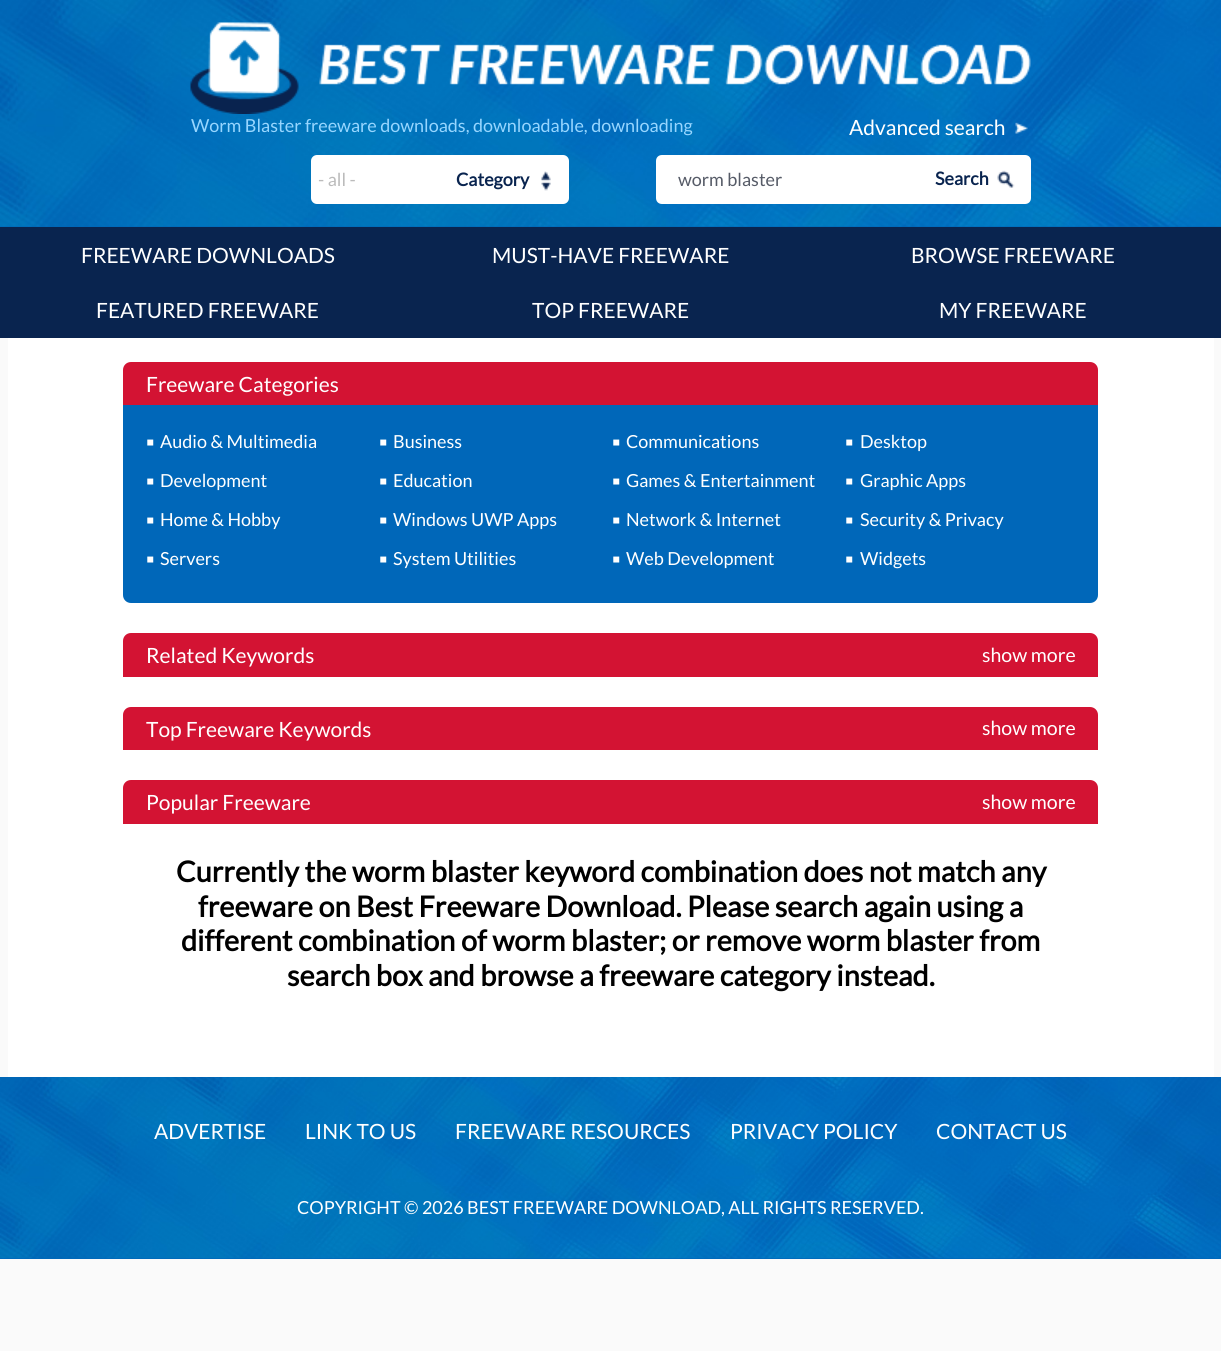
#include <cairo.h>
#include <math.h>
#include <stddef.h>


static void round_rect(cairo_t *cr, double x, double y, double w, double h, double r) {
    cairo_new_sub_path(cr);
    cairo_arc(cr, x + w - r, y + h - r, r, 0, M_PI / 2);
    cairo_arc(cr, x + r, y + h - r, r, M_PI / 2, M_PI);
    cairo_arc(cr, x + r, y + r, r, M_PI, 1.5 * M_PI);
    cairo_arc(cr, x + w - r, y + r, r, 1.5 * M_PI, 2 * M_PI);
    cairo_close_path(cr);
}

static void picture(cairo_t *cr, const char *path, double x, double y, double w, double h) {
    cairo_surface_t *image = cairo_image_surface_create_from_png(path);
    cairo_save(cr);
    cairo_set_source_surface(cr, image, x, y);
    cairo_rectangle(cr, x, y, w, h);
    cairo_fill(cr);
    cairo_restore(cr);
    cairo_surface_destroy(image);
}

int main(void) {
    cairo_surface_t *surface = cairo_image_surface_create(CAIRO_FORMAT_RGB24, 1221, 1351);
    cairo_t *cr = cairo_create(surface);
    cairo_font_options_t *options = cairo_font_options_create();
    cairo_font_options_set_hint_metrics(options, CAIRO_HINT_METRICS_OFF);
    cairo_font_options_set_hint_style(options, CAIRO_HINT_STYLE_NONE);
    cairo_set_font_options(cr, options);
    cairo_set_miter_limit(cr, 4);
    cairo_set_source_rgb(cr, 0.98, 0.98, 0.98);
    cairo_paint(cr);
    cairo_set_source_rgb(cr, 0.004, 0.404, 0.725);
    cairo_rectangle(cr, 0, 226, 1221, 1);
    cairo_fill(cr);
    picture(cr, "img1.png", 0, 0, 1221, 227);
    picture(cr, "img2.png", 190, 22, 841, 92);
    cairo_select_font_face(cr, "Lato", CAIRO_FONT_SLANT_NORMAL, CAIRO_FONT_WEIGHT_NORMAL);
    cairo_set_font_size(cr, 18);
    cairo_set_source_rgb(cr, 0.592, 0.839, 1);
    cairo_move_to(cr, 191, 132);
    cairo_show_text(cr, "Worm Blaster freeware downloads, downloadable, downloading");
    cairo_set_font_size(cr, 21);
    cairo_set_source_rgb(cr, 1, 1, 1);
    cairo_move_to(cr, 849, 135);
    cairo_show_text(cr, "Advanced search");
    picture(cr, "img3.png", 1015, 122, 13, 12);
    round_rect(cr, 311, 155, 258, 49, 6);
    cairo_fill(cr);
    cairo_set_font_size(cr, 18);
    cairo_set_source_rgb(cr, 0.733, 0.733, 0.733);
    cairo_move_to(cr, 318, 186);
    cairo_show_text(cr, "- all -");
    cairo_select_font_face(cr, "Lato", CAIRO_FONT_SLANT_NORMAL, CAIRO_FONT_WEIGHT_BOLD);
    cairo_set_source_rgb(cr, 0.039, 0.141, 0.31);
    cairo_move_to(cr, 456, 186);
    cairo_show_text(cr, "Category");
    picture(cr, "img4.png", 541, 171, 10, 20);
    cairo_set_source_rgb(cr, 1, 1, 1);
    cairo_new_path(cr);
    cairo_move_to(cr, 662, 155);
    cairo_line_to(cr, 926, 155);
    cairo_line_to(cr, 926, 204);
    cairo_line_to(cr, 662, 204);
    cairo_curve_to(cr, 658.5, 204, 656, 201.5, 656, 198);
    cairo_line_to(cr, 656, 161);
    cairo_curve_to(cr, 656, 157.5, 658.5, 155, 662, 155);
    cairo_close_path(cr);
    cairo_fill(cr);
    cairo_select_font_face(cr, "Lato", CAIRO_FONT_SLANT_NORMAL, CAIRO_FONT_WEIGHT_NORMAL);
    cairo_set_source_rgb(cr, 0.337, 0.357, 0.404);
    cairo_move_to(cr, 678, 186);
    cairo_show_text(cr, "worm blaster");
    cairo_set_source_rgb(cr, 1, 1, 1);
    cairo_new_path(cr);
    cairo_move_to(cr, 926, 155);
    cairo_line_to(cr, 1025, 155);
    cairo_curve_to(cr, 1028.5, 155, 1031, 157.5, 1031, 161);
    cairo_line_to(cr, 1031, 198);
    cairo_curve_to(cr, 1031, 201.5, 1028.5, 204, 1025, 204);
    cairo_line_to(cr, 926, 204);
    cairo_close_path(cr);
    cairo_fill(cr);
    cairo_select_font_face(cr, "Lato", CAIRO_FONT_SLANT_NORMAL, CAIRO_FONT_WEIGHT_BOLD);
    cairo_set_source_rgb(cr, 0.039, 0.141, 0.31);
    cairo_move_to(cr, 935, 185);
    cairo_show_text(cr, "Search");
    picture(cr, "img5.png", 997, 170, 18, 18);
    cairo_rectangle(cr, 0, 227, 1221, 111);
    cairo_fill(cr);
    cairo_select_font_face(cr, "Lato", CAIRO_FONT_SLANT_NORMAL, CAIRO_FONT_WEIGHT_NORMAL);
    cairo_set_font_size(cr, 21);
    cairo_set_source_rgb(cr, 1, 1, 1);
    cairo_move_to(cr, 81, 263);
    cairo_show_text(cr, "FREEWARE DOWNLOADS");
    cairo_move_to(cr, 492, 263);
    cairo_show_text(cr, "MUST-HAVE FREEWARE");
    cairo_move_to(cr, 911, 263);
    cairo_show_text(cr, "BROWSE FREEWARE");
    cairo_move_to(cr, 96, 318);
    cairo_show_text(cr, "FEATURED FREEWARE");
    cairo_move_to(cr, 532, 318);
    cairo_show_text(cr, "TOP FREEWARE");
    cairo_move_to(cr, 939, 318);
    cairo_show_text(cr, "MY FREEWARE");
    cairo_rectangle(cr, 8, 338, 1206, 739);
    cairo_fill(cr);
    cairo_set_source_rgb(cr, 0.827, 0.075, 0.2);
    cairo_new_path(cr);
    cairo_move_to(cr, 131, 362);
    cairo_line_to(cr, 1090, 362);
    cairo_curve_to(cr, 1094.5, 362, 1098, 365.5, 1098, 370);
    cairo_line_to(cr, 1098, 405);
    cairo_line_to(cr, 123, 405);
    cairo_line_to(cr, 123, 370);
    cairo_curve_to(cr, 123, 365.5, 126.5, 362, 131, 362);
    cairo_close_path(cr);
    cairo_fill(cr);
    cairo_set_source_rgb(cr, 1, 1, 1);
    cairo_move_to(cr, 146, 392);
    cairo_show_text(cr, "Freeware Categories");
    cairo_set_source_rgb(cr, 0, 0.404, 0.725);
    cairo_new_path(cr);
    cairo_move_to(cr, 123, 405);
    cairo_line_to(cr, 1098, 405);
    cairo_line_to(cr, 1098, 595);
    cairo_curve_to(cr, 1098, 599.5, 1094.5, 603, 1090, 603);
    cairo_line_to(cr, 131, 603);
    cairo_curve_to(cr, 126.5, 603, 123, 599.5, 123, 595);
    cairo_close_path(cr);
    cairo_fill(cr);
    cairo_select_font_face(cr, "Liberation Sans", CAIRO_FONT_SLANT_NORMAL, CAIRO_FONT_WEIGHT_NORMAL);
    cairo_set_font_size(cr, 24);
    cairo_set_source_rgb(cr, 1, 1, 1);
    cairo_move_to(cr, 146, 450);
    cairo_show_text(cr, "▪");
    cairo_select_font_face(cr, "Lato", CAIRO_FONT_SLANT_NORMAL, CAIRO_FONT_WEIGHT_NORMAL);
    cairo_set_font_size(cr, 18);
    cairo_move_to(cr, 160, 448);
    cairo_show_text(cr, "Audio & Multimedia");
    cairo_select_font_face(cr, "Liberation Sans", CAIRO_FONT_SLANT_NORMAL, CAIRO_FONT_WEIGHT_NORMAL);
    cairo_set_font_size(cr, 24);
    cairo_move_to(cr, 379, 450);
    cairo_show_text(cr, "▪");
    cairo_select_font_face(cr, "Lato", CAIRO_FONT_SLANT_NORMAL, CAIRO_FONT_WEIGHT_NORMAL);
    cairo_set_font_size(cr, 18);
    cairo_move_to(cr, 393, 448);
    cairo_show_text(cr, "Business");
    cairo_select_font_face(cr, "Liberation Sans", CAIRO_FONT_SLANT_NORMAL, CAIRO_FONT_WEIGHT_NORMAL);
    cairo_set_font_size(cr, 24);
    cairo_move_to(cr, 612, 450);
    cairo_show_text(cr, "▪");
    cairo_select_font_face(cr, "Lato", CAIRO_FONT_SLANT_NORMAL, CAIRO_FONT_WEIGHT_NORMAL);
    cairo_set_font_size(cr, 18);
    cairo_move_to(cr, 626, 448);
    cairo_show_text(cr, "Communications");
    cairo_select_font_face(cr, "Liberation Sans", CAIRO_FONT_SLANT_NORMAL, CAIRO_FONT_WEIGHT_NORMAL);
    cairo_set_font_size(cr, 24);
    cairo_move_to(cr, 845, 450);
    cairo_show_text(cr, "▪");
    cairo_select_font_face(cr, "Lato", CAIRO_FONT_SLANT_NORMAL, CAIRO_FONT_WEIGHT_NORMAL);
    cairo_set_font_size(cr, 18);
    cairo_move_to(cr, 860, 448);
    cairo_show_text(cr, "Desktop");
    cairo_select_font_face(cr, "Liberation Sans", CAIRO_FONT_SLANT_NORMAL, CAIRO_FONT_WEIGHT_NORMAL);
    cairo_set_font_size(cr, 24);
    cairo_move_to(cr, 146, 489);
    cairo_show_text(cr, "▪");
    cairo_select_font_face(cr, "Lato", CAIRO_FONT_SLANT_NORMAL, CAIRO_FONT_WEIGHT_NORMAL);
    cairo_set_font_size(cr, 18);
    cairo_move_to(cr, 160, 487);
    cairo_show_text(cr, "Development");
    cairo_select_font_face(cr, "Liberation Sans", CAIRO_FONT_SLANT_NORMAL, CAIRO_FONT_WEIGHT_NORMAL);
    cairo_set_font_size(cr, 24);
    cairo_move_to(cr, 379, 489);
    cairo_show_text(cr, "▪");
    cairo_select_font_face(cr, "Lato", CAIRO_FONT_SLANT_NORMAL, CAIRO_FONT_WEIGHT_NORMAL);
    cairo_set_font_size(cr, 18);
    cairo_move_to(cr, 393, 487);
    cairo_show_text(cr, "Education");
    cairo_select_font_face(cr, "Liberation Sans", CAIRO_FONT_SLANT_NORMAL, CAIRO_FONT_WEIGHT_NORMAL);
    cairo_set_font_size(cr, 24);
    cairo_move_to(cr, 612, 489);
    cairo_show_text(cr, "▪");
    cairo_select_font_face(cr, "Lato", CAIRO_FONT_SLANT_NORMAL, CAIRO_FONT_WEIGHT_NORMAL);
    cairo_set_font_size(cr, 18);
    cairo_move_to(cr, 626, 487);
    cairo_show_text(cr, "Games & Entertainment");
    cairo_select_font_face(cr, "Liberation Sans", CAIRO_FONT_SLANT_NORMAL, CAIRO_FONT_WEIGHT_NORMAL);
    cairo_set_font_size(cr, 24);
    cairo_move_to(cr, 845, 489);
    cairo_show_text(cr, "▪");
    cairo_select_font_face(cr, "Lato", CAIRO_FONT_SLANT_NORMAL, CAIRO_FONT_WEIGHT_NORMAL);
    cairo_set_font_size(cr, 18);
    cairo_move_to(cr, 860, 487);
    cairo_show_text(cr, "Graphic Apps");
    cairo_select_font_face(cr, "Liberation Sans", CAIRO_FONT_SLANT_NORMAL, CAIRO_FONT_WEIGHT_NORMAL);
    cairo_set_font_size(cr, 24);
    cairo_move_to(cr, 146, 528);
    cairo_show_text(cr, "▪");
    cairo_select_font_face(cr, "Lato", CAIRO_FONT_SLANT_NORMAL, CAIRO_FONT_WEIGHT_NORMAL);
    cairo_set_font_size(cr, 18);
    cairo_move_to(cr, 160, 526);
    cairo_show_text(cr, "Home & Hobby");
    cairo_select_font_face(cr, "Liberation Sans", CAIRO_FONT_SLANT_NORMAL, CAIRO_FONT_WEIGHT_NORMAL);
    cairo_set_font_size(cr, 24);
    cairo_move_to(cr, 379, 528);
    cairo_show_text(cr, "▪");
    cairo_select_font_face(cr, "Lato", CAIRO_FONT_SLANT_NORMAL, CAIRO_FONT_WEIGHT_NORMAL);
    cairo_set_font_size(cr, 18);
    cairo_move_to(cr, 393, 526);
    cairo_show_text(cr, "Windows UWP Apps");
    cairo_select_font_face(cr, "Liberation Sans", CAIRO_FONT_SLANT_NORMAL, CAIRO_FONT_WEIGHT_NORMAL);
    cairo_set_font_size(cr, 24);
    cairo_move_to(cr, 612, 528);
    cairo_show_text(cr, "▪");
    cairo_select_font_face(cr, "Lato", CAIRO_FONT_SLANT_NORMAL, CAIRO_FONT_WEIGHT_NORMAL);
    cairo_set_font_size(cr, 18);
    cairo_move_to(cr, 626, 526);
    cairo_show_text(cr, "Network & Internet");
    cairo_select_font_face(cr, "Liberation Sans", CAIRO_FONT_SLANT_NORMAL, CAIRO_FONT_WEIGHT_NORMAL);
    cairo_set_font_size(cr, 24);
    cairo_move_to(cr, 845, 528);
    cairo_show_text(cr, "▪");
    cairo_select_font_face(cr, "Lato", CAIRO_FONT_SLANT_NORMAL, CAIRO_FONT_WEIGHT_NORMAL);
    cairo_set_font_size(cr, 18);
    cairo_move_to(cr, 860, 526);
    cairo_show_text(cr, "Security & Privacy");
    cairo_select_font_face(cr, "Liberation Sans", CAIRO_FONT_SLANT_NORMAL, CAIRO_FONT_WEIGHT_NORMAL);
    cairo_set_font_size(cr, 24);
    cairo_move_to(cr, 146, 567);
    cairo_show_text(cr, "▪");
    cairo_select_font_face(cr, "Lato", CAIRO_FONT_SLANT_NORMAL, CAIRO_FONT_WEIGHT_NORMAL);
    cairo_set_font_size(cr, 18);
    cairo_move_to(cr, 160, 565);
    cairo_show_text(cr, "Servers");
    cairo_select_font_face(cr, "Liberation Sans", CAIRO_FONT_SLANT_NORMAL, CAIRO_FONT_WEIGHT_NORMAL);
    cairo_set_font_size(cr, 24);
    cairo_move_to(cr, 379, 567);
    cairo_show_text(cr, "▪");
    cairo_select_font_face(cr, "Lato", CAIRO_FONT_SLANT_NORMAL, CAIRO_FONT_WEIGHT_NORMAL);
    cairo_set_font_size(cr, 18);
    cairo_move_to(cr, 393, 565);
    cairo_show_text(cr, "System Utilities");
    cairo_select_font_face(cr, "Liberation Sans", CAIRO_FONT_SLANT_NORMAL, CAIRO_FONT_WEIGHT_NORMAL);
    cairo_set_font_size(cr, 24);
    cairo_move_to(cr, 612, 567);
    cairo_show_text(cr, "▪");
    cairo_select_font_face(cr, "Lato", CAIRO_FONT_SLANT_NORMAL, CAIRO_FONT_WEIGHT_NORMAL);
    cairo_set_font_size(cr, 18);
    cairo_move_to(cr, 626, 565);
    cairo_show_text(cr, "Web Development");
    cairo_select_font_face(cr, "Liberation Sans", CAIRO_FONT_SLANT_NORMAL, CAIRO_FONT_WEIGHT_NORMAL);
    cairo_set_font_size(cr, 24);
    cairo_move_to(cr, 845, 567);
    cairo_show_text(cr, "▪");
    cairo_select_font_face(cr, "Lato", CAIRO_FONT_SLANT_NORMAL, CAIRO_FONT_WEIGHT_NORMAL);
    cairo_set_font_size(cr, 18);
    cairo_move_to(cr, 860, 565);
    cairo_show_text(cr, "Widgets");
    cairo_set_source_rgb(cr, 0.827, 0.075, 0.2);
    cairo_new_path(cr);
    cairo_move_to(cr, 131, 633);
    cairo_line_to(cr, 1090, 633);
    cairo_curve_to(cr, 1094.5, 633, 1098, 636.5, 1098, 641);
    cairo_line_to(cr, 1098, 677);
    cairo_line_to(cr, 123, 677);
    cairo_line_to(cr, 123, 641);
    cairo_curve_to(cr, 123, 636.5, 126.5, 633, 131, 633);
    cairo_close_path(cr);
    cairo_fill(cr);
    cairo_set_font_size(cr, 21);
    cairo_set_source_rgb(cr, 1, 1, 1);
    cairo_move_to(cr, 146, 663);
    cairo_show_text(cr, "Related Keywords");
    cairo_set_font_size(cr, 19.5);
    cairo_move_to(cr, 982, 662);
    cairo_show_text(cr, "show more");
    cairo_set_source_rgb(cr, 0.827, 0.075, 0.2);
    cairo_new_path(cr);
    cairo_move_to(cr, 131, 707);
    cairo_line_to(cr, 1090, 707);
    cairo_curve_to(cr, 1094.5, 707, 1098, 710.5, 1098, 715);
    cairo_line_to(cr, 1098, 750);
    cairo_line_to(cr, 123, 750);
    cairo_line_to(cr, 123, 715);
    cairo_curve_to(cr, 123, 710.5, 126.5, 707, 131, 707);
    cairo_close_path(cr);
    cairo_fill(cr);
    cairo_set_font_size(cr, 21);
    cairo_set_source_rgb(cr, 1, 1, 1);
    cairo_move_to(cr, 146, 737);
    cairo_show_text(cr, "Top Freeware Keywords");
    cairo_set_font_size(cr, 19.5);
    cairo_move_to(cr, 982, 735);
    cairo_show_text(cr, "show more");
    cairo_set_source_rgb(cr, 0.827, 0.075, 0.2);
    cairo_new_path(cr);
    cairo_move_to(cr, 131, 780);
    cairo_line_to(cr, 1090, 780);
    cairo_curve_to(cr, 1094.5, 780, 1098, 783.5, 1098, 788);
    cairo_line_to(cr, 1098, 824);
    cairo_line_to(cr, 123, 824);
    cairo_line_to(cr, 123, 788);
    cairo_curve_to(cr, 123, 783.5, 126.5, 780, 131, 780);
    cairo_close_path(cr);
    cairo_fill(cr);
    cairo_set_font_size(cr, 21);
    cairo_set_source_rgb(cr, 1, 1, 1);
    cairo_move_to(cr, 146, 810);
    cairo_show_text(cr, "Popular Freeware");
    cairo_set_font_size(cr, 19.5);
    cairo_move_to(cr, 982, 809);
    cairo_show_text(cr, "show more");
    cairo_select_font_face(cr, "Lato", CAIRO_FONT_SLANT_NORMAL, CAIRO_FONT_WEIGHT_BOLD);
    cairo_set_font_size(cr, 28.8);
    cairo_set_source_rgb(cr, 0, 0, 0);
    cairo_move_to(cr, 176, 882);
    cairo_show_text(cr, "Currently the worm blaster keyword combination does not match any");
    cairo_move_to(cr, 198, 917);
    cairo_show_text(cr, "freeware on Best Freeware Download.");
    cairo_move_to(cr, 687, 917);
    cairo_show_text(cr, "Please search again using a");
    cairo_move_to(cr, 181, 951);
    cairo_show_text(cr, "different combination of worm blaster; or remove worm blaster from");
    cairo_move_to(cr, 287, 986);
    cairo_show_text(cr, "search box and browse a freeware category instead.");
    cairo_set_source_rgb(cr, 0.004, 0.404, 0.725);
    cairo_rectangle(cr, 0, 1258, 1221, 1);
    cairo_fill(cr);
    picture(cr, "img6.png", 0, 1077, 1221, 182);
    cairo_select_font_face(cr, "Lato", CAIRO_FONT_SLANT_NORMAL, CAIRO_FONT_WEIGHT_NORMAL);
    cairo_set_font_size(cr, 21);
    cairo_set_source_rgb(cr, 1, 1, 1);
    cairo_move_to(cr, 154, 1139);
    cairo_show_text(cr, "ADVERTISE");
    cairo_move_to(cr, 305, 1139);
    cairo_show_text(cr, "LINK TO US");
    cairo_move_to(cr, 455, 1139);
    cairo_show_text(cr, "FREEWARE RESOURCES");
    cairo_move_to(cr, 730, 1139);
    cairo_show_text(cr, "PRIVACY POLICY");
    cairo_move_to(cr, 936, 1139);
    cairo_show_text(cr, "CONTACT US");
    cairo_set_font_size(cr, 18);
    cairo_move_to(cr, 297, 1214);
    cairo_show_text(cr, "COPYRIGHT © 2026 BEST FREEWARE DOWNLOAD, ALL RIGHTS RESERVED.");
    cairo_surface_write_to_png(surface, "page.png");
    cairo_font_options_destroy(options);
    cairo_destroy(cr);
    cairo_surface_destroy(surface);
    return 0;
}
